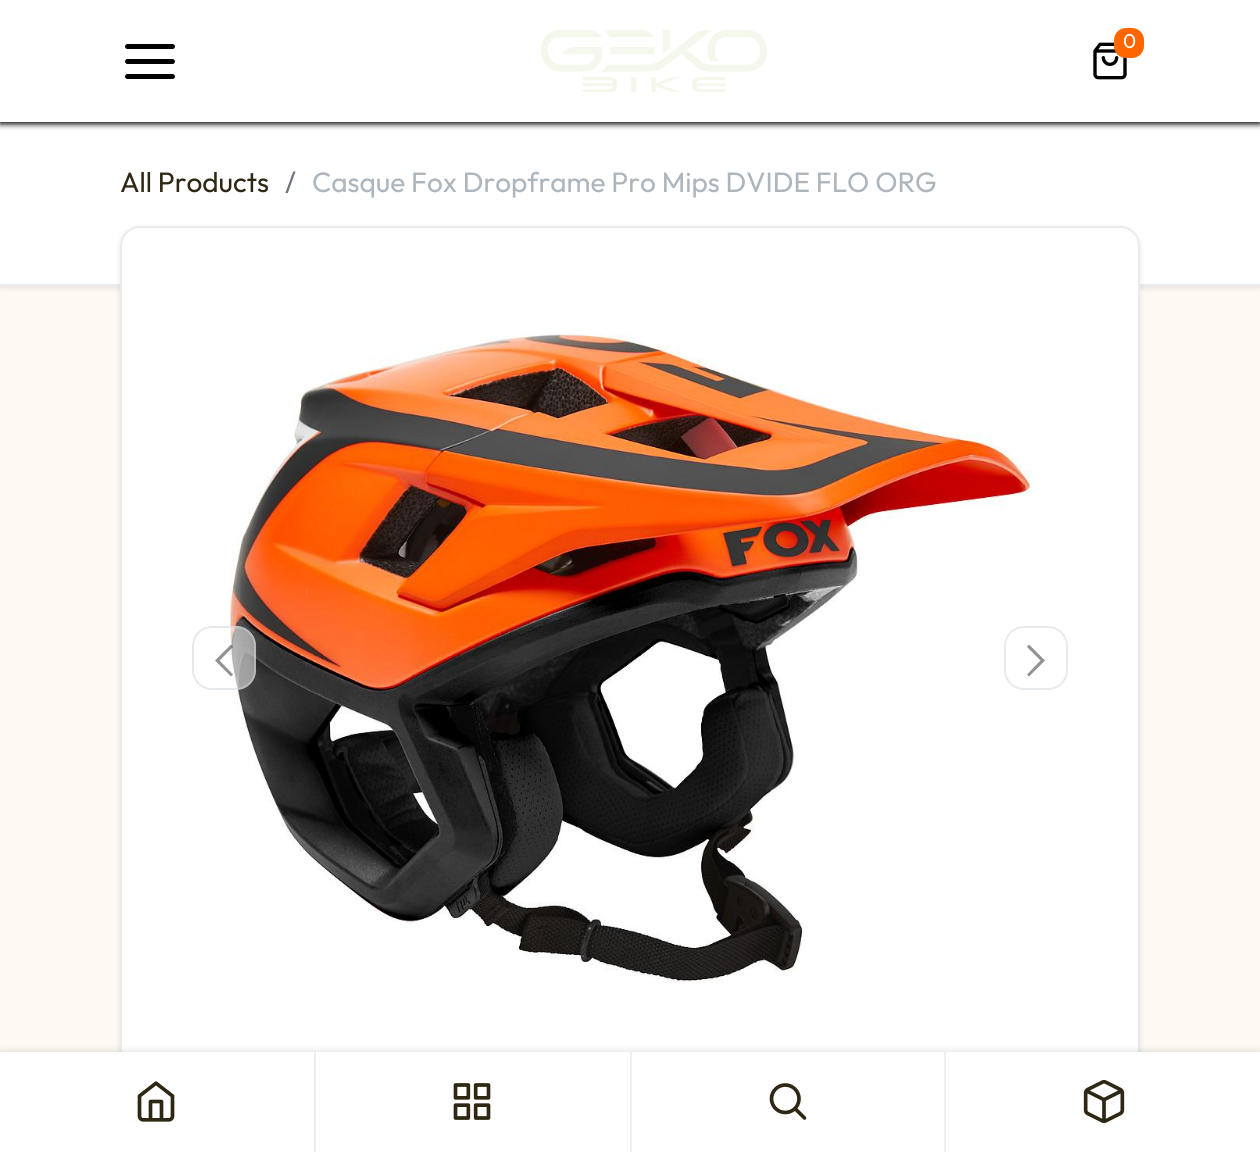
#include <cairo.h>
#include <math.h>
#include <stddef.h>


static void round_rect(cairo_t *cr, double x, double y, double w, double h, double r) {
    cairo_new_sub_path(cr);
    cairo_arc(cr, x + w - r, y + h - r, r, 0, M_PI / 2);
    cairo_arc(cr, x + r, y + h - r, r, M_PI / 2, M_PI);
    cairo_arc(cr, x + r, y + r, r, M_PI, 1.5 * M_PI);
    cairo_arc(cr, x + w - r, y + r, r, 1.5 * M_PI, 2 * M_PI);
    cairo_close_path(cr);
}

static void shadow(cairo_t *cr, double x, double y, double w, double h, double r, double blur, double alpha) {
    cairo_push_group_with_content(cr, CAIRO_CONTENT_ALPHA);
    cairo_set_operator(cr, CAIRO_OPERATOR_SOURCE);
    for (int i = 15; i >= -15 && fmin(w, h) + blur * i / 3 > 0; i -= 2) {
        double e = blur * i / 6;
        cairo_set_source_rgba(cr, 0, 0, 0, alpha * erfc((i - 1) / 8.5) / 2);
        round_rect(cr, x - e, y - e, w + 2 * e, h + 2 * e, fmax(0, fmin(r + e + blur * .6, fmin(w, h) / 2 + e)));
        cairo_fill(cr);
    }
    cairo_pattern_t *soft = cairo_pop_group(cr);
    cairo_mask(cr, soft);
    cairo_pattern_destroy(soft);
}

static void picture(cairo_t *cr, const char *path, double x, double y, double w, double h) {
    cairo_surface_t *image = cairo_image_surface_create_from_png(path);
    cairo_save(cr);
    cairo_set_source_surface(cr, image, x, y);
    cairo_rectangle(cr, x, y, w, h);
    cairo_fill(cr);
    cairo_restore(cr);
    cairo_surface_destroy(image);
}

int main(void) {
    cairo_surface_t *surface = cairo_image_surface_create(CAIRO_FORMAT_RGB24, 1260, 1152);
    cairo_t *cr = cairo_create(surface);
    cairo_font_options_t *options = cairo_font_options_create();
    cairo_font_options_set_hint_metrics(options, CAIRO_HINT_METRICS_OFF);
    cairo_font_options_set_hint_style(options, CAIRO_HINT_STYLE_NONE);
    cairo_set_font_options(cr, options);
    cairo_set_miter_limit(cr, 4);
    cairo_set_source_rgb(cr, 1, 0.973, 0.953);
    cairo_paint(cr);
    cairo_set_source_rgb(cr, 0, 0, 0);
    shadow(cr, 0, 124, 1260, 164, 0, 3, 0.1);
    cairo_set_source_rgb(cr, 1, 1, 1);
    cairo_rectangle(cr, 0, 122, 1260, 162);
    cairo_fill(cr);
    cairo_set_source_rgb(cr, 0, 0, 0);
    shadow(cr, 0, 2, 1260, 122, 0, 3, 1);
    cairo_set_source_rgb(cr, 1, 1, 1);
    cairo_rectangle(cr, 0, 0, 1260, 122);
    cairo_fill(cr);
    picture(cr, "img1.png", 540, 30, 228, 62);
    picture(cr, "img2.png", 1093, 42, 34, 38);
    cairo_set_source_rgb(cr, 1, 0.4, 0);
    round_rect(cr, 1114, 28, 30, 30, 12);
    cairo_fill(cr);
    cairo_select_font_face(cr, "Outfit", CAIRO_FONT_SLANT_NORMAL, CAIRO_FONT_WEIGHT_NORMAL);
    cairo_set_font_size(cr, 20);
    cairo_set_source_rgb(cr, 1, 1, 1);
    cairo_move_to(cr, 1123, 48);
    cairo_show_text(cr, "0");
    picture(cr, "img3.png", 125, 44, 50, 35);
    cairo_set_source_rgb(cr, 0.914, 0.925, 0.937);
    cairo_rectangle(cr, 0, 284, 1260, 2);
    cairo_fill(cr);
    cairo_set_font_size(cr, 28);
    cairo_set_source_rgb(cr, 0.18, 0.153, 0.078);
    cairo_move_to(cr, 120, 192);
    cairo_show_text(cr, "All Products");
    cairo_set_source_rgb(cr, 0.424, 0.459, 0.49);
    cairo_move_to(cr, 285, 192);
    cairo_show_text(cr, "/");
    cairo_set_source_rgb(cr, 0.678, 0.71, 0.741);
    cairo_move_to(cr, 312, 192);
    cairo_show_text(cr, "Casque Fox Dropframe Pro Mips DVIDE FLO ORG");
    cairo_set_source_rgb(cr, 0, 0, 0);
    shadow(cr, 120, 228, 1020, 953, 20, 3, 0.1);
    cairo_set_source_rgb(cr, 1, 1, 1);
    cairo_new_path(cr);
    cairo_move_to(cr, 140, 226);
    cairo_line_to(cr, 1120, 226);
    cairo_curve_to(cr, 1131, 226, 1140, 235, 1140, 246);
    cairo_line_to(cr, 1140, 1152);
    cairo_line_to(cr, 120, 1152);
    cairo_line_to(cr, 120, 246);
    cairo_curve_to(cr, 120, 235, 129, 226, 140, 226);
    cairo_close_path(cr);
    cairo_fill(cr);
    round_rect(cr, 121, 227, 1018, 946, 19);
    cairo_set_source_rgb(cr, 0.914, 0.925, 0.937);
    cairo_stroke(cr);
    picture(cr, "img4.png", 230, 333, 800, 650);
    cairo_set_source_rgba(cr, 1, 1, 1, 0.5);
    round_rect(cr, 192, 626, 64, 64, 20);
    cairo_fill(cr);
    round_rect(cr, 193, 627, 62, 62, 19);
    cairo_set_source_rgba(cr, 0.808, 0.831, 0.855, 0.5);
    cairo_stroke(cr);
    cairo_set_source_rgba(cr, 0.129, 0.145, 0.161, 0.5);
    cairo_new_path(cr);
    cairo_move_to(cr, 215, 660.5);
    cairo_line_to(cr, 231, 644.5);
    cairo_line_to(cr, 233, 647);
    cairo_line_to(cr, 219.5, 660.5);
    cairo_line_to(cr, 233, 674.5);
    cairo_line_to(cr, 231, 676.5);
    cairo_close_path(cr);
    cairo_fill(cr);
    round_rect(cr, 1005, 627, 62, 62, 19);
    cairo_set_source_rgb(cr, 0.906, 0.918, 0.929);
    cairo_stroke(cr);
    cairo_set_source_rgb(cr, 0.565, 0.573, 0.58);
    cairo_new_path(cr);
    cairo_move_to(cr, 1045, 660.5);
    cairo_line_to(cr, 1029, 676.5);
    cairo_line_to(cr, 1027, 674.5);
    cairo_line_to(cr, 1040.5, 660.5);
    cairo_line_to(cr, 1027, 647);
    cairo_line_to(cr, 1029, 644.5);
    cairo_close_path(cr);
    cairo_fill(cr);
    cairo_set_source_rgb(cr, 0, 0, 0);
    shadow(cr, 0, 1050, 1260, 100, 0, 3, 0.1);
    cairo_set_source_rgb(cr, 1, 1, 1);
    cairo_rectangle(cr, 0, 1052, 1260, 100);
    cairo_fill(cr);
    picture(cr, "img5.png", 137, 1081, 38, 41);
    cairo_set_source_rgb(cr, 0.933, 0.933, 0.933);
    cairo_rectangle(cr, 314, 1052, 2, 100);
    cairo_fill(cr);
    picture(cr, "img6.png", 453, 1083, 38, 37);
    cairo_rectangle(cr, 630, 1052, 2, 100);
    cairo_fill(cr);
    picture(cr, "img7.png", 769, 1083, 38, 37);
    cairo_rectangle(cr, 944, 1052, 2, 100);
    cairo_fill(cr);
    picture(cr, "img8.png", 1083, 1079, 42, 45);
    cairo_surface_write_to_png(surface, "page.png");
    cairo_font_options_destroy(options);
    cairo_destroy(cr);
    cairo_surface_destroy(surface);
    return 0;
}
